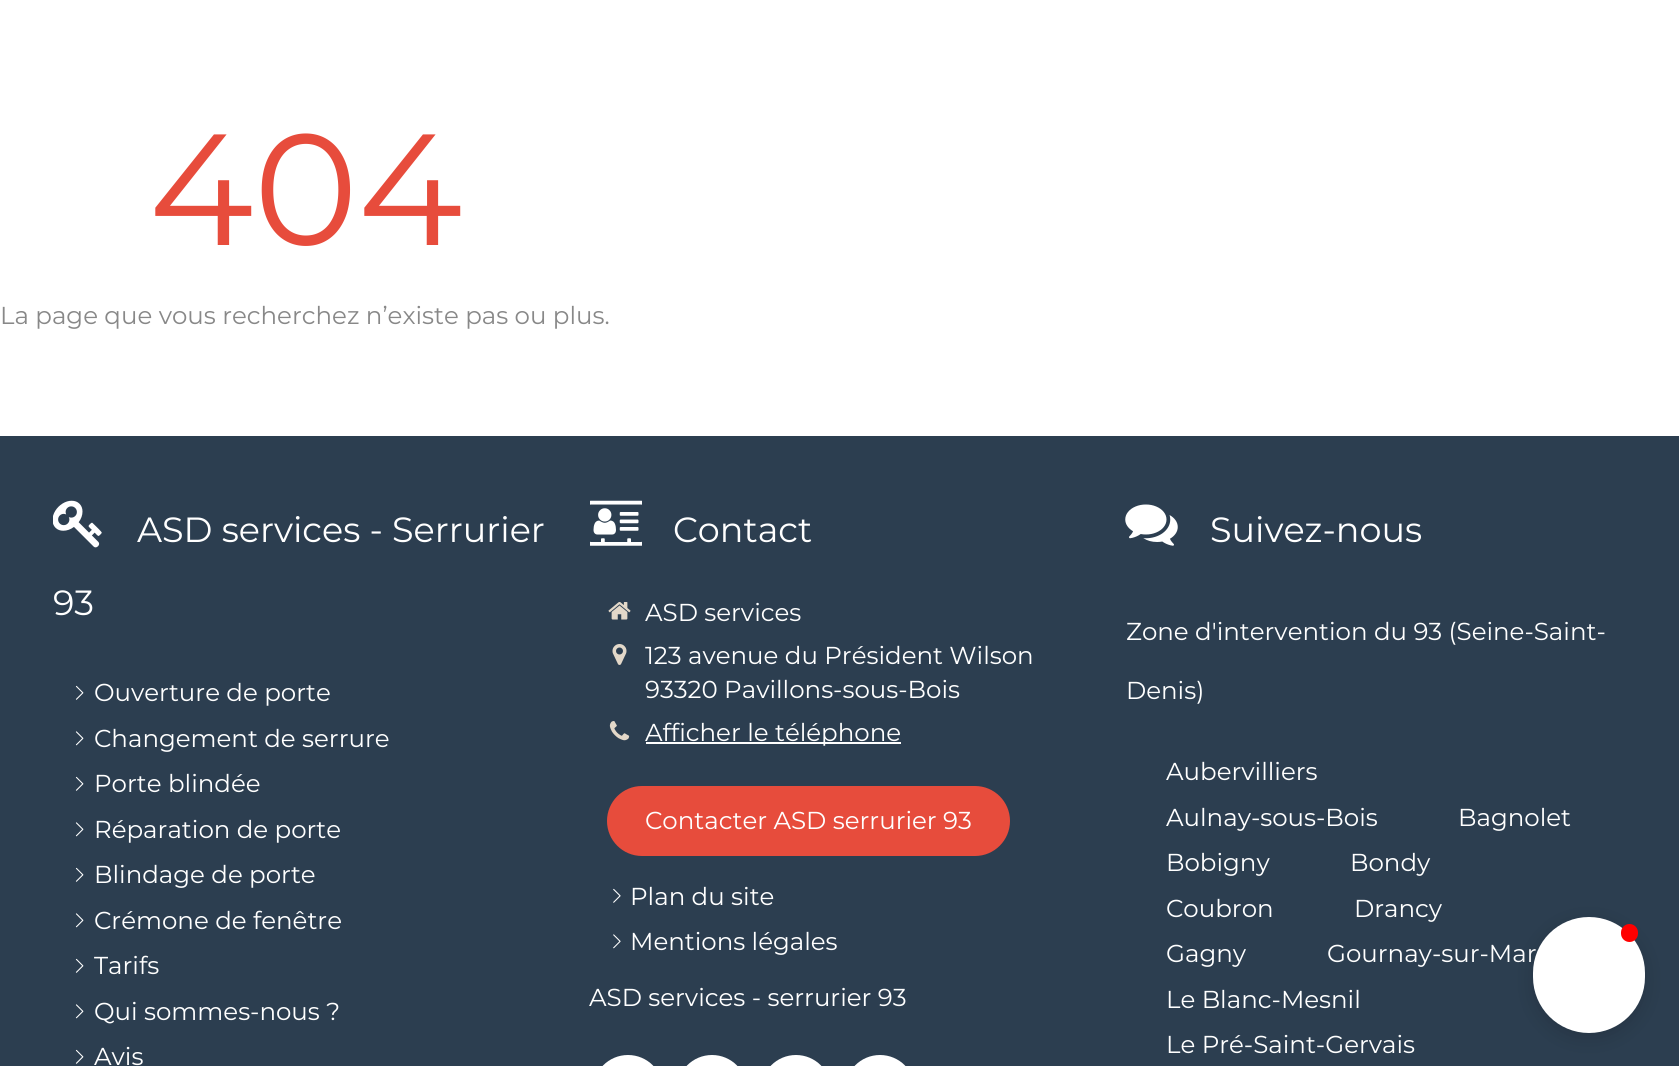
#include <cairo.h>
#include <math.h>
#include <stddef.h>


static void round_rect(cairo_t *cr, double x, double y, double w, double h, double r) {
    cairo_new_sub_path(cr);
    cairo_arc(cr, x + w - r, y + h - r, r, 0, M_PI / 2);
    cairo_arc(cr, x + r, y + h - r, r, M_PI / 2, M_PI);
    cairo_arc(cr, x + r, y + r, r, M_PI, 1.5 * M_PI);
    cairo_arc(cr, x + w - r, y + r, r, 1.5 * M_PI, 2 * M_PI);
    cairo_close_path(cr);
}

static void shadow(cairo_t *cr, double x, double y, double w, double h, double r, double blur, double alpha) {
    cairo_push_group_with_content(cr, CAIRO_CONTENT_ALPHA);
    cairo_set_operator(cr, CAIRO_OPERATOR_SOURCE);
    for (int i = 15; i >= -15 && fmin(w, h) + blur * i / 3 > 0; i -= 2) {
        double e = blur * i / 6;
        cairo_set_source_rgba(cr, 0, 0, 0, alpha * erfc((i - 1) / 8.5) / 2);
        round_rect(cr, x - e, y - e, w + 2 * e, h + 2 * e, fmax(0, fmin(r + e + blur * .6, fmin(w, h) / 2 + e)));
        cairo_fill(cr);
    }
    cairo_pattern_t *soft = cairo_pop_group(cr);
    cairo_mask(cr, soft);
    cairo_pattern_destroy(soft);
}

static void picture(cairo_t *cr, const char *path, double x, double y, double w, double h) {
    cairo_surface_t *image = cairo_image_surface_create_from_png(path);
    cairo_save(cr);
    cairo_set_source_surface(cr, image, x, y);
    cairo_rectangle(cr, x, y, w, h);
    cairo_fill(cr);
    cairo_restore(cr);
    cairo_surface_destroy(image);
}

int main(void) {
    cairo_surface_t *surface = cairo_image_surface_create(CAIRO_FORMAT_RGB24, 1679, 1066);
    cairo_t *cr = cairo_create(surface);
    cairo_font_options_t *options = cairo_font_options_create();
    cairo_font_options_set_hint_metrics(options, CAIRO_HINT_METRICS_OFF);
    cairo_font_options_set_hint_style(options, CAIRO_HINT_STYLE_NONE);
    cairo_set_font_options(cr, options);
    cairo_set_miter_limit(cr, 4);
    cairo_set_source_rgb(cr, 1, 1, 1);
    cairo_paint(cr);
    cairo_select_font_face(cr, "Montserrat", CAIRO_FONT_SLANT_NORMAL, CAIRO_FONT_WEIGHT_NORMAL);
    cairo_set_font_size(cr, 158);
    cairo_set_source_rgb(cr, 0.906, 0.298, 0.235);
    cairo_move_to(cr, 149, 245);
    cairo_show_text(cr, "404");
    cairo_set_font_size(cr, 24.5);
    cairo_set_source_rgb(cr, 0.533, 0.533, 0.533);
    cairo_move_to(cr, 0, 324);
    cairo_show_text(cr, "La page que vous recherchez n’existe pas ou plus.");
    cairo_set_source_rgb(cr, 0.173, 0.243, 0.314);
    cairo_rectangle(cr, 0, 436, 1679, 630);
    cairo_fill(cr);
    picture(cr, "img1.png", 53, 500, 49, 48);
    cairo_set_font_size(cr, 35);
    cairo_set_source_rgb(cr, 1, 1, 1);
    cairo_move_to(cr, 137, 542);
    cairo_show_text(cr, "ASD services - Serrurier");
    cairo_move_to(cr, 53, 615);
    cairo_show_text(cr, "93");
    picture(cr, "img2.png", 75, 685, 9, 15);
    cairo_set_font_size(cr, 24.5);
    cairo_move_to(cr, 94, 701);
    cairo_show_text(cr, "Ouverture de porte");
    picture(cr, "img3.png", 75, 731, 9, 15);
    cairo_move_to(cr, 94, 747);
    cairo_show_text(cr, "Changement de serrure");
    picture(cr, "img2.png", 75, 776, 9, 15);
    cairo_move_to(cr, 94, 792);
    cairo_show_text(cr, "Porte blindée");
    picture(cr, "img3.png", 75, 822, 9, 15);
    cairo_move_to(cr, 94, 838);
    cairo_show_text(cr, "Réparation de porte");
    picture(cr, "img2.png", 75, 867, 9, 15);
    cairo_move_to(cr, 94, 883);
    cairo_show_text(cr, "Blindage de porte");
    picture(cr, "img3.png", 75, 913, 9, 15);
    cairo_move_to(cr, 94, 929);
    cairo_show_text(cr, "Crémone de fenêtre");
    picture(cr, "img2.png", 75, 958, 9, 15);
    cairo_move_to(cr, 94, 974);
    cairo_show_text(cr, "Tarifs");
    picture(cr, "img3.png", 75, 1004, 9, 15);
    cairo_move_to(cr, 94, 1020);
    cairo_show_text(cr, "Qui sommes-nous ?");
    picture(cr, "img2.png", 75, 1049, 9, 15);
    cairo_move_to(cr, 94, 1065);
    cairo_show_text(cr, "Avis");
    picture(cr, "img4.png", 590, 500, 52, 46);
    cairo_set_font_size(cr, 35);
    cairo_move_to(cr, 673, 542);
    cairo_show_text(cr, "Contact");
    picture(cr, "img5.png", 608, 602, 23, 18);
    cairo_set_font_size(cr, 24.5);
    cairo_move_to(cr, 645, 621);
    cairo_show_text(cr, "ASD services");
    picture(cr, "img6.png", 612, 644, 15, 21);
    cairo_move_to(cr, 645, 664);
    cairo_show_text(cr, "123 avenue du Président Wilson");
    cairo_move_to(cr, 645, 698);
    cairo_show_text(cr, "93320 Pavillons-sous-Bois");
    picture(cr, "img7.png", 609, 721, 21, 20);
    cairo_rectangle(cr, 646, 742, 255, 2);
    cairo_fill(cr);
    cairo_move_to(cr, 645, 741);
    cairo_show_text(cr, "Afficher le téléphone");
    cairo_set_source_rgb(cr, 0.906, 0.298, 0.235);
    round_rect(cr, 609, 788, 399, 66, 33);
    cairo_fill_preserve(cr);
    cairo_set_line_width(cr, 4);
    cairo_stroke(cr);
    cairo_set_source_rgb(cr, 1, 1, 1);
    cairo_move_to(cr, 645, 829);
    cairo_show_text(cr, "Contacter ASD serrurier 93");
    picture(cr, "img8.png", 613, 888, 8, 15);
    cairo_move_to(cr, 630, 905);
    cairo_show_text(cr, "Plan du site");
    picture(cr, "img9.png", 613, 934, 8, 15);
    cairo_move_to(cr, 630, 950);
    cairo_show_text(cr, "Mentions légales");
    cairo_move_to(cr, 589, 1006);
    cairo_show_text(cr, "ASD services - serrurier 93");
    round_rect(cr, 593, 1055, 70, 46, 35);
    cairo_fill(cr);
    round_rect(cr, 677, 1055, 70, 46, 35);
    cairo_fill(cr);
    round_rect(cr, 761, 1055, 70, 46, 35);
    cairo_fill(cr);
    round_rect(cr, 845, 1055, 70, 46, 35);
    cairo_fill(cr);
    picture(cr, "img10.png", 1125, 504, 53, 42);
    cairo_set_font_size(cr, 35);
    cairo_move_to(cr, 1210, 542);
    cairo_show_text(cr, "Suivez-nous");
    cairo_set_font_size(cr, 24.5);
    cairo_move_to(cr, 1126, 640);
    cairo_show_text(cr, "Zone d'intervention du 93 (Seine-Saint-");
    cairo_move_to(cr, 1126, 699);
    cairo_show_text(cr, "Denis)");
    cairo_move_to(cr, 1166, 780);
    cairo_show_text(cr, "Aubervilliers");
    cairo_move_to(cr, 1166, 826);
    cairo_show_text(cr, "Aulnay-sous-Bois");
    cairo_move_to(cr, 1458, 826);
    cairo_show_text(cr, "Bagnolet");
    cairo_move_to(cr, 1166, 871);
    cairo_show_text(cr, "Bobigny");
    cairo_move_to(cr, 1350, 871);
    cairo_show_text(cr, "Bondy");
    cairo_move_to(cr, 1166, 917);
    cairo_show_text(cr, "Coubron");
    cairo_move_to(cr, 1354, 917);
    cairo_show_text(cr, "Drancy");
    cairo_move_to(cr, 1166, 962);
    cairo_show_text(cr, "Gagny");
    cairo_move_to(cr, 1327, 962);
    cairo_show_text(cr, "Gournay-sur-Mar");
    cairo_move_to(cr, 1166, 1008);
    cairo_show_text(cr, "Le Blanc-Mesnil");
    cairo_move_to(cr, 1166, 1053);
    cairo_show_text(cr, "Le Pré-Saint-Gervais");
    cairo_set_source_rgb(cr, 0, 0, 0);
    shadow(cr, 1533, 922, 112, 116, 56, 10.5, 0.15);
    cairo_set_source_rgb(cr, 1, 1, 1);
    round_rect(cr, 1533, 917, 112, 116, 56);
    cairo_fill(cr);
    cairo_set_source_rgb(cr, 1, 0, 0);
    round_rect(cr, 1621, 924, 17, 18, 8.5);
    cairo_fill(cr);
    cairo_surface_write_to_png(surface, "page.png");
    cairo_font_options_destroy(options);
    cairo_destroy(cr);
    cairo_surface_destroy(surface);
    return 0;
}
